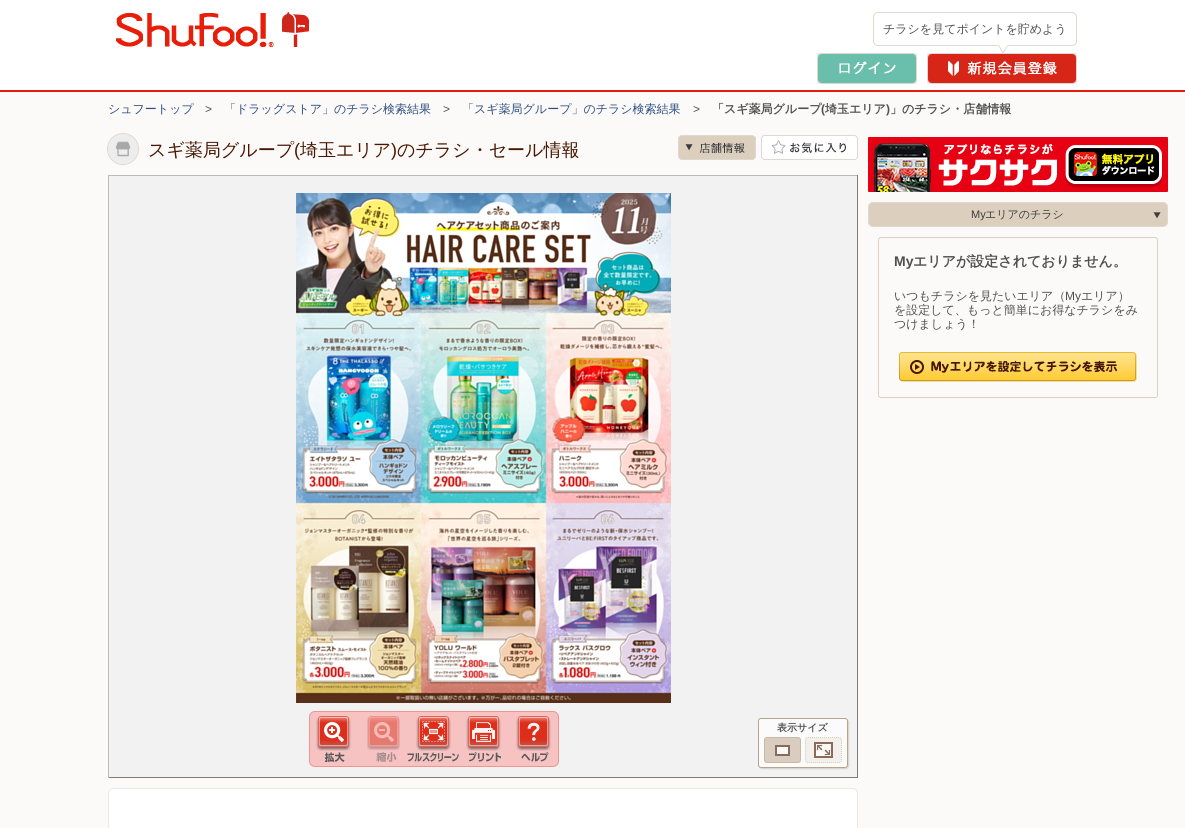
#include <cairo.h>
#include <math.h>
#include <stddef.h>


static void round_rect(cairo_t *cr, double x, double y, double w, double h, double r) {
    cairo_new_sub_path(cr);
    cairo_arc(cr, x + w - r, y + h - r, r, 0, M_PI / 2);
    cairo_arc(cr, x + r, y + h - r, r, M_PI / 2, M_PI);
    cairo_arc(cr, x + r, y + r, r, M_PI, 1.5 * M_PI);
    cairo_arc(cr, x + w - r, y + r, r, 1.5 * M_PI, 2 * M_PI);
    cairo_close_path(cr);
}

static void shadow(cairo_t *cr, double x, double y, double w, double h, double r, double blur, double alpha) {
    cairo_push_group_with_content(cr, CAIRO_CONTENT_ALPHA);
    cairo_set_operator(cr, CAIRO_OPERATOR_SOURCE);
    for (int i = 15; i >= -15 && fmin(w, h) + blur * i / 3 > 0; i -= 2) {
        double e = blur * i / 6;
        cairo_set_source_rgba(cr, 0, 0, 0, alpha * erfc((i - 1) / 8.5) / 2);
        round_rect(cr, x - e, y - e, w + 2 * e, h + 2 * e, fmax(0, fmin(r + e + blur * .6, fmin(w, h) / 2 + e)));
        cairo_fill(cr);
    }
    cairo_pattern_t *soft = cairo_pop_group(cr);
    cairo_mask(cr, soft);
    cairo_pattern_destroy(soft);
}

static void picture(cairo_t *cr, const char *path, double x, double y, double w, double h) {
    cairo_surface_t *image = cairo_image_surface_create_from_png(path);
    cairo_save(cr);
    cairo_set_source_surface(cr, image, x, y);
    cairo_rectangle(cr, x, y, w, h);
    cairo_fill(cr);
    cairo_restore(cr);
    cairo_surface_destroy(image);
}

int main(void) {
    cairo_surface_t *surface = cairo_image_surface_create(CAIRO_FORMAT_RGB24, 1185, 828);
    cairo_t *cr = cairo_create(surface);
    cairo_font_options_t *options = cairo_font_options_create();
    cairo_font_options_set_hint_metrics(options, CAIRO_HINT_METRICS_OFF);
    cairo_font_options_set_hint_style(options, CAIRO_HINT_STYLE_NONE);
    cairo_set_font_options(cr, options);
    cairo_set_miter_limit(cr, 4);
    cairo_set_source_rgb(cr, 0.984, 0.98, 0.973);
    cairo_paint(cr);
    cairo_set_source_rgb(cr, 1, 1, 1);
    cairo_rectangle(cr, 0, 0, 1185, 90);
    cairo_fill(cr);
    cairo_set_source_rgb(cr, 0.902, 0.118, 0.039);
    cairo_rectangle(cr, 0, 90, 1185, 2);
    cairo_fill(cr);
    picture(cr, "img1.png", 116, 12, 194, 35);
    round_rect(cr, 873.5, 12.5, 203, 33, 4.5);
    cairo_set_source_rgb(cr, 0.871, 0.847, 0.816);
    cairo_set_line_width(cr, 1);
    cairo_stroke(cr);
    cairo_select_font_face(cr, "WenQuanYi Zen Hei Medium", CAIRO_FONT_SLANT_NORMAL, CAIRO_FONT_WEIGHT_NORMAL);
    cairo_set_font_size(cr, 12);
    cairo_set_source_rgb(cr, 0.314, 0.314, 0.314);
    cairo_move_to(cr, 883, 33);
    cairo_show_text(cr, "チラシを見てポイントを貯めよう");
    picture(cr, "img2.png", 998, 45, 10, 8);
    cairo_set_source_rgb(cr, 0.957, 0.941, 0.918);
    cairo_rectangle(cr, 817, 53, 100, 31);
    cairo_fill(cr);
    picture(cr, "img3.png", 817, 53, 100, 31);
    cairo_rectangle(cr, 927, 53, 150, 31);
    cairo_fill(cr);
    picture(cr, "img4.png", 927, 53, 150, 31);
    cairo_set_source_rgb(cr, 0.173, 0.31, 0.494);
    cairo_move_to(cr, 108, 113);
    cairo_show_text(cr, "シュフートップ");
    cairo_select_font_face(cr, "Liberation Sans", CAIRO_FONT_SLANT_NORMAL, CAIRO_FONT_WEIGHT_NORMAL);
    cairo_set_source_rgb(cr, 0.314, 0.314, 0.314);
    cairo_move_to(cr, 205, 113);
    cairo_show_text(cr, ">");
    cairo_select_font_face(cr, "WenQuanYi Zen Hei Medium", CAIRO_FONT_SLANT_NORMAL, CAIRO_FONT_WEIGHT_NORMAL);
    cairo_set_source_rgb(cr, 0.173, 0.31, 0.494);
    cairo_move_to(cr, 224, 113);
    cairo_show_text(cr, "「ドラッグストア」のチラシ検索結果");
    cairo_select_font_face(cr, "Liberation Sans", CAIRO_FONT_SLANT_NORMAL, CAIRO_FONT_WEIGHT_NORMAL);
    cairo_set_source_rgb(cr, 0.314, 0.314, 0.314);
    cairo_move_to(cr, 443, 113);
    cairo_show_text(cr, ">");
    cairo_select_font_face(cr, "WenQuanYi Zen Hei Medium", CAIRO_FONT_SLANT_NORMAL, CAIRO_FONT_WEIGHT_NORMAL);
    cairo_set_source_rgb(cr, 0.173, 0.31, 0.494);
    cairo_move_to(cr, 462, 113);
    cairo_show_text(cr, "「スギ薬局グループ」のチラシ検索結果");
    cairo_select_font_face(cr, "Liberation Sans", CAIRO_FONT_SLANT_NORMAL, CAIRO_FONT_WEIGHT_NORMAL);
    cairo_set_source_rgb(cr, 0.314, 0.314, 0.314);
    cairo_move_to(cr, 693, 113);
    cairo_show_text(cr, ">");
    cairo_select_font_face(cr, "WenQuanYi Zen Hei", CAIRO_FONT_SLANT_NORMAL, CAIRO_FONT_WEIGHT_BOLD);
    cairo_move_to(cr, 712, 113);
    cairo_show_text(cr, "「スギ薬局グループ");
    cairo_select_font_face(cr, "Liberation Sans", CAIRO_FONT_SLANT_NORMAL, CAIRO_FONT_WEIGHT_BOLD);
    cairo_move_to(cr, 821, 113);
    cairo_show_text(cr, "(");
    cairo_select_font_face(cr, "WenQuanYi Zen Hei", CAIRO_FONT_SLANT_NORMAL, CAIRO_FONT_WEIGHT_BOLD);
    cairo_move_to(cr, 825, 113);
    cairo_show_text(cr, "埼玉エリア");
    cairo_select_font_face(cr, "Liberation Sans", CAIRO_FONT_SLANT_NORMAL, CAIRO_FONT_WEIGHT_BOLD);
    cairo_move_to(cr, 886, 113);
    cairo_show_text(cr, ")");
    cairo_select_font_face(cr, "WenQuanYi Zen Hei", CAIRO_FONT_SLANT_NORMAL, CAIRO_FONT_WEIGHT_BOLD);
    cairo_move_to(cr, 890, 113);
    cairo_show_text(cr, "」のチラシ・店舗情報");
    picture(cr, "img5.png", 108, 134, 30, 30);
    cairo_arc(cr, 123, 149, 15.5, 0, 2 * M_PI);
    cairo_set_source_rgb(cr, 0.871, 0.847, 0.816);
    cairo_stroke(cr);
    cairo_select_font_face(cr, "WenQuanYi Zen Hei Medium", CAIRO_FONT_SLANT_NORMAL, CAIRO_FONT_WEIGHT_NORMAL);
    cairo_set_font_size(cr, 18);
    cairo_set_source_rgb(cr, 0.278, 0.09, 0);
    cairo_move_to(cr, 148, 156);
    cairo_show_text(cr, "スギ薬局グループ");
    cairo_select_font_face(cr, "Liberation Sans", CAIRO_FONT_SLANT_NORMAL, CAIRO_FONT_WEIGHT_NORMAL);
    cairo_move_to(cr, 294, 156);
    cairo_show_text(cr, "(");
    cairo_select_font_face(cr, "WenQuanYi Zen Hei Medium", CAIRO_FONT_SLANT_NORMAL, CAIRO_FONT_WEIGHT_NORMAL);
    cairo_move_to(cr, 300, 156);
    cairo_show_text(cr, "埼玉エリア");
    cairo_select_font_face(cr, "Liberation Sans", CAIRO_FONT_SLANT_NORMAL, CAIRO_FONT_WEIGHT_NORMAL);
    cairo_move_to(cr, 391, 156);
    cairo_show_text(cr, ")");
    cairo_select_font_face(cr, "WenQuanYi Zen Hei Medium", CAIRO_FONT_SLANT_NORMAL, CAIRO_FONT_WEIGHT_NORMAL);
    cairo_move_to(cr, 397, 156);
    cairo_show_text(cr, "のチラシ・セール情報");
    picture(cr, "img6.png", 678, 135, 78, 25);
    picture(cr, "img7.png", 761, 135, 97, 25);
    cairo_set_source_rgb(cr, 0.949, 0.949, 0.949);
    cairo_rectangle(cr, 109, 176, 748, 601);
    cairo_fill(cr);
    cairo_set_source_rgb(cr, 0.733, 0.733, 0.733);
    cairo_rectangle(cr, 108, 175, 750, 1);
    cairo_fill(cr);
    cairo_set_source_rgb(cr, 0.49, 0.49, 0.49);
    cairo_rectangle(cr, 857, 175, 1, 603);
    cairo_fill(cr);
    cairo_rectangle(cr, 108, 777, 750, 1);
    cairo_fill(cr);
    cairo_set_source_rgb(cr, 0.733, 0.733, 0.733);
    cairo_rectangle(cr, 108, 175, 1, 603);
    cairo_fill(cr);
    picture(cr, "img8.png", 296, 193, 375, 510);
    cairo_set_source_rgb(cr, 0.961, 0.761, 0.761);
    round_rect(cr, 309, 711, 250, 56, 6);
    cairo_fill(cr);
    round_rect(cr, 309.5, 711.5, 249, 55, 5.5);
    cairo_set_source_rgba(cr, 0.863, 0.18, 0.102, 0.3);
    cairo_stroke(cr);
    cairo_set_source_rgb(cr, 0.863, 0.18, 0.102);
    round_rect(cr, 319, 717, 29, 29, 2);
    cairo_fill(cr);
    round_rect(cr, 318.5, 716.5, 30, 30, 2.5);
    cairo_set_source_rgba(cr, 0.863, 0.18, 0.102, 0.65);
    cairo_stroke(cr);
    picture(cr, "img9.png", 316, 717, 35, 34);
    picture(cr, "img10.png", 316, 718, 35, 33);
    picture(cr, "img11.png", 324, 752, 21, 10);
    cairo_set_source_rgb(cr, 0.914, 0.471, 0.431);
    round_rect(cr, 369, 717, 29, 29, 2);
    cairo_fill(cr);
    round_rect(cr, 368.5, 716.5, 30, 30, 2.5);
    cairo_set_source_rgba(cr, 0.914, 0.471, 0.431, 0.65);
    cairo_stroke(cr);
    picture(cr, "img12.png", 367, 717, 33, 33);
    picture(cr, "img13.png", 367, 719, 33, 31);
    picture(cr, "img14.png", 376, 752, 21, 10);
    cairo_set_source_rgb(cr, 0.863, 0.18, 0.102);
    round_rect(cr, 419, 717, 29, 29, 2);
    cairo_fill(cr);
    round_rect(cr, 418.5, 716.5, 30, 30, 2.5);
    cairo_set_source_rgba(cr, 0.863, 0.18, 0.102, 0.65);
    cairo_stroke(cr);
    picture(cr, "img15.png", 416, 717, 35, 34);
    picture(cr, "img16.png", 416, 718, 35, 33);
    picture(cr, "img17.png", 407, 752, 52, 10);
    cairo_set_source_rgb(cr, 0.863, 0.18, 0.102);
    round_rect(cr, 469, 717, 29, 29, 2);
    cairo_fill(cr);
    round_rect(cr, 468.5, 716.5, 30, 30, 2.5);
    cairo_set_source_rgba(cr, 0.863, 0.18, 0.102, 0.65);
    cairo_stroke(cr);
    picture(cr, "img18.png", 466, 717, 35, 34);
    picture(cr, "img19.png", 466, 718, 35, 33);
    picture(cr, "img20.png", 469, 752, 32, 10);
    cairo_set_source_rgb(cr, 0.863, 0.18, 0.102);
    round_rect(cr, 519, 717, 29, 29, 2);
    cairo_fill(cr);
    round_rect(cr, 518.5, 716.5, 30, 30, 2.5);
    cairo_set_source_rgba(cr, 0.863, 0.18, 0.102, 0.65);
    cairo_stroke(cr);
    picture(cr, "img21.png", 516, 717, 35, 34);
    picture(cr, "img22.png", 516, 718, 35, 33);
    picture(cr, "img23.png", 521, 752, 28, 10);
    cairo_save(cr);
    cairo_set_fill_rule(cr, CAIRO_FILL_RULE_EVEN_ODD);
    cairo_new_path(cr);
    cairo_move_to(cr, 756, 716);
    cairo_line_to(cr, 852, 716);
    cairo_line_to(cr, 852, 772);
    cairo_line_to(cr, 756, 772);
    cairo_close_path(cr);
    cairo_move_to(cr, 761, 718);
    cairo_line_to(cr, 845, 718);
    cairo_curve_to(cr, 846.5, 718, 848, 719.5, 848, 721);
    cairo_line_to(cr, 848, 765);
    cairo_curve_to(cr, 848, 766.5, 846.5, 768, 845, 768);
    cairo_line_to(cr, 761, 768);
    cairo_curve_to(cr, 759.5, 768, 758, 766.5, 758, 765);
    cairo_line_to(cr, 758, 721);
    cairo_curve_to(cr, 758, 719.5, 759.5, 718, 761, 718);
    cairo_close_path(cr);
    cairo_clip(cr);
    cairo_set_source_rgb(cr, 0.278, 0.09, 0);
    shadow(cr, 759, 719, 90, 50, 3, 0.5, 0.15);
    cairo_restore(cr);
    cairo_set_source_rgba(cr, 1, 1, 1, 0.7);
    round_rect(cr, 758.5, 718.5, 89, 49, 2.5);
    cairo_fill_preserve(cr);
    cairo_set_source_rgb(cr, 0.722, 0.643, 0.553);
    cairo_stroke(cr);
    cairo_select_font_face(cr, "WenQuanYi Zen Hei", CAIRO_FONT_SLANT_NORMAL, CAIRO_FONT_WEIGHT_BOLD);
    cairo_set_font_size(cr, 10);
    cairo_set_source_rgb(cr, 0.314, 0.314, 0.314);
    cairo_move_to(cr, 777, 731);
    cairo_show_text(cr, "表示サイズ");
    cairo_set_source_rgb(cr, 0.851, 0.804, 0.749);
    round_rect(cr, 764.5, 737.5, 36, 25, 2.5);
    cairo_fill_preserve(cr);
    cairo_set_source_rgb(cr, 0.788, 0.722, 0.647);
    cairo_stroke(cr);
    picture(cr, "img24.png", 775, 745, 15, 11);
    cairo_set_source_rgb(cr, 0.953, 0.937, 0.918);
    round_rect(cr, 805, 737, 37, 26, 3);
    cairo_fill(cr);
    cairo_new_path(cr);
    cairo_move_to(cr, 808, 737.5);
    cairo_line_to(cr, 839, 737.5);
    cairo_curve_to(cr, 840.5, 737.5, 841.5, 738.5, 841.5, 740);
    cairo_line_to(cr, 841.5, 760);
    cairo_curve_to(cr, 841.5, 761.5, 840.5, 762.5, 839, 762.5);
    cairo_line_to(cr, 808, 762.5);
    cairo_curve_to(cr, 806.5, 762.5, 805.5, 761.5, 805.5, 760);
    cairo_line_to(cr, 805.5, 740);
    cairo_curve_to(cr, 805.5, 738.5, 806.5, 737.5, 808, 737.5);
    cairo_close_path(cr);
    cairo_set_source_rgb(cr, 0.851, 0.804, 0.749);
    cairo_set_dash(cr, (double[]){1, 1}, 2, 0);
    cairo_stroke(cr);
    picture(cr, "img25.png", 814, 742, 19, 16);
    cairo_set_source_rgb(cr, 1, 1, 1);
    round_rect(cr, 108.5, 788.5, 749, 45, 4.5);
    cairo_fill_preserve(cr);
    cairo_set_source_rgb(cr, 0.922, 0.906, 0.886);
    cairo_set_dash(cr, NULL, 0, 0);
    cairo_stroke(cr);
    picture(cr, "img26.png", 868, 137, 300, 55);
    cairo_set_source_rgb(cr, 0.867, 0.812, 0.745);
    round_rect(cr, 868.5, 202.5, 299, 24, 4.5);
    cairo_fill_preserve(cr);
    cairo_set_source_rgb(cr, 0.871, 0.847, 0.816);
    cairo_stroke(cr);
    cairo_select_font_face(cr, "Liberation Sans", CAIRO_FONT_SLANT_NORMAL, CAIRO_FONT_WEIGHT_NORMAL);
    cairo_set_font_size(cr, 11);
    cairo_set_source_rgb(cr, 0.235, 0.235, 0.235);
    cairo_move_to(cr, 971, 218);
    cairo_show_text(cr, "My");
    cairo_select_font_face(cr, "WenQuanYi Zen Hei Medium", CAIRO_FONT_SLANT_NORMAL, CAIRO_FONT_WEIGHT_NORMAL);
    cairo_move_to(cr, 985, 218);
    cairo_show_text(cr, "エリアのチラシ");
    picture(cr, "img27.png", 1153, 212, 8, 6);
    round_rect(cr, 878.5, 237.5, 279, 160, 2.5);
    cairo_set_source_rgb(cr, 0.859, 0.812, 0.753);
    cairo_stroke(cr);
    cairo_select_font_face(cr, "Liberation Sans", CAIRO_FONT_SLANT_NORMAL, CAIRO_FONT_WEIGHT_BOLD);
    cairo_set_font_size(cr, 14);
    cairo_set_source_rgb(cr, 0.314, 0.314, 0.314);
    cairo_move_to(cr, 894, 266);
    cairo_show_text(cr, "My");
    cairo_select_font_face(cr, "WenQuanYi Zen Hei", CAIRO_FONT_SLANT_NORMAL, CAIRO_FONT_WEIGHT_BOLD);
    cairo_move_to(cr, 913, 266);
    cairo_show_text(cr, "エリアが設定されておりません。");
    cairo_select_font_face(cr, "WenQuanYi Zen Hei Medium", CAIRO_FONT_SLANT_NORMAL, CAIRO_FONT_WEIGHT_NORMAL);
    cairo_set_font_size(cr, 12);
    cairo_move_to(cr, 894, 300);
    cairo_show_text(cr, "いつもチラシを見たいエリア（");
    cairo_select_font_face(cr, "Liberation Sans", CAIRO_FONT_SLANT_NORMAL, CAIRO_FONT_WEIGHT_NORMAL);
    cairo_move_to(cr, 1065, 300);
    cairo_show_text(cr, "My");
    cairo_select_font_face(cr, "WenQuanYi Zen Hei Medium", CAIRO_FONT_SLANT_NORMAL, CAIRO_FONT_WEIGHT_NORMAL);
    cairo_move_to(cr, 1081, 300);
    cairo_show_text(cr, "エリア）");
    cairo_move_to(cr, 894, 314);
    cairo_show_text(cr, "を設定して、もっと簡単にお得なチラシをみ");
    cairo_move_to(cr, 894, 328);
    cairo_show_text(cr, "つけましょう！");
    picture(cr, "img28.png", 899, 352, 238, 30);
    cairo_surface_write_to_png(surface, "page.png");
    cairo_font_options_destroy(options);
    cairo_destroy(cr);
    cairo_surface_destroy(surface);
    return 0;
}
